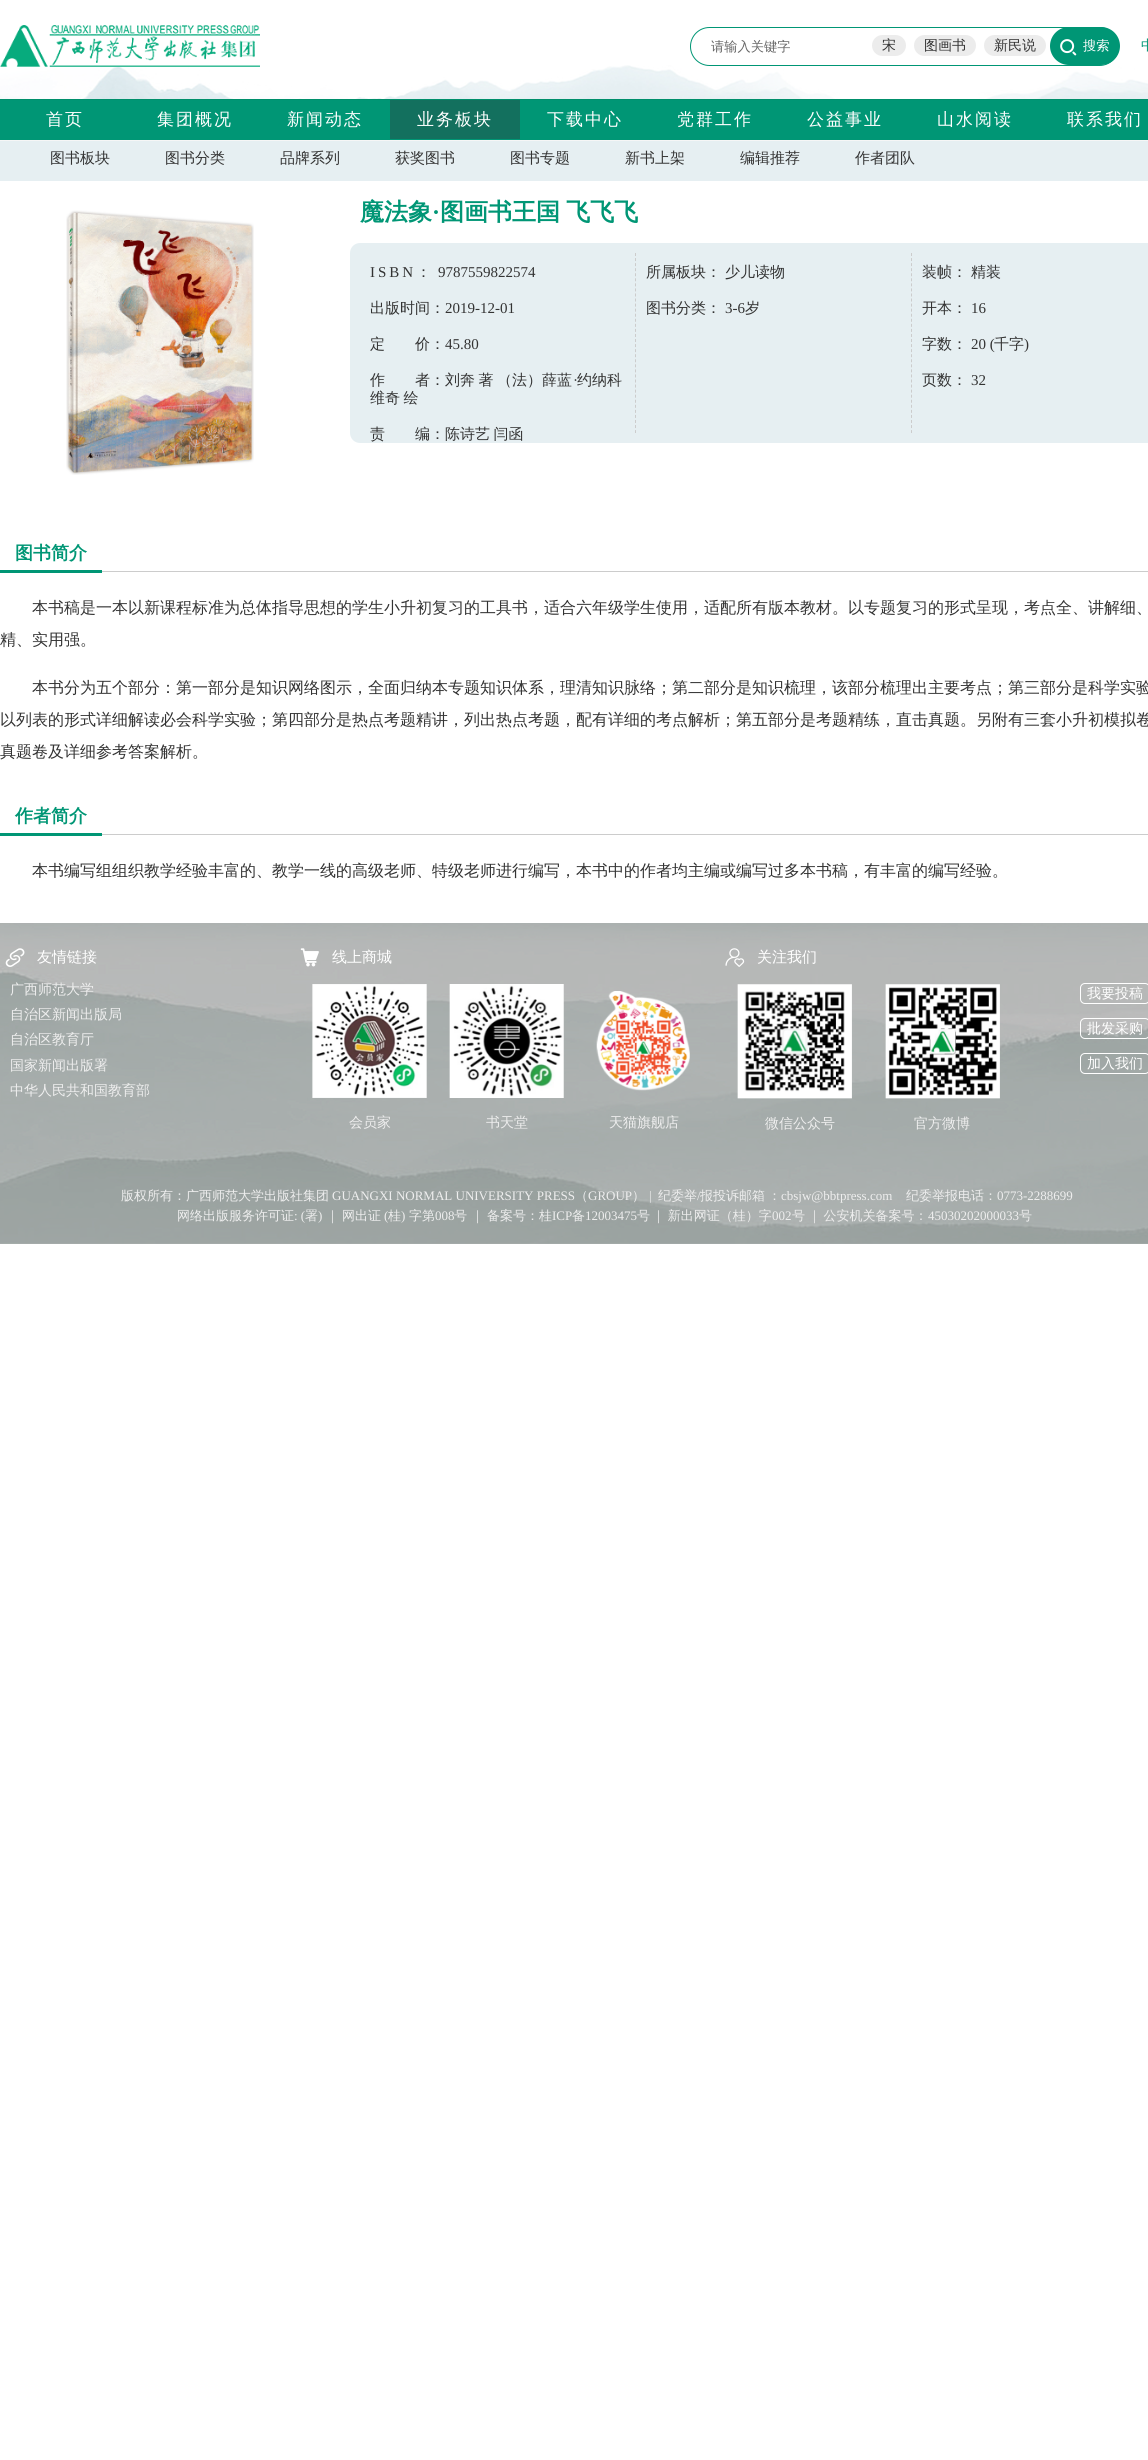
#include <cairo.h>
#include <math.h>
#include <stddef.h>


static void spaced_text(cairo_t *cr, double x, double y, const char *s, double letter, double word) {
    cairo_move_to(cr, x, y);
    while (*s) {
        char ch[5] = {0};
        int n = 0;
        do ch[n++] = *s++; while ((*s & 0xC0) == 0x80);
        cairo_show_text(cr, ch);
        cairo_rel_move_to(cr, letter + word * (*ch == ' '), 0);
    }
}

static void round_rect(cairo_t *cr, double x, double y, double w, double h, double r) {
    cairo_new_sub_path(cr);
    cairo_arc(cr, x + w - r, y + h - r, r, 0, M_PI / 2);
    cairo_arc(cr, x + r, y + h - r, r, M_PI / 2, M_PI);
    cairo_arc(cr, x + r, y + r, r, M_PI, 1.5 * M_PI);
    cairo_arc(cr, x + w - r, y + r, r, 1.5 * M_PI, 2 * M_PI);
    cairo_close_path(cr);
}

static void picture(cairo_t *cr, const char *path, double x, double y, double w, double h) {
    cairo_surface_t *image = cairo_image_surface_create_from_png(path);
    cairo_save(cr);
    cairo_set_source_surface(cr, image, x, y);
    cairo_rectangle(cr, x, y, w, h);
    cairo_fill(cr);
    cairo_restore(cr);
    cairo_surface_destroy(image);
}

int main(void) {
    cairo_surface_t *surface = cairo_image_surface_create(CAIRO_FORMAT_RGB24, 1148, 2460);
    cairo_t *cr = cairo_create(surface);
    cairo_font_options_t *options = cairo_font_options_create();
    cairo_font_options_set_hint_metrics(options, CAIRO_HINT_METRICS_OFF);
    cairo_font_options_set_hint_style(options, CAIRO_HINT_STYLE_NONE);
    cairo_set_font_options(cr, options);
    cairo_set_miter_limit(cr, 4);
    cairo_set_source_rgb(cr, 1, 1, 1);
    cairo_paint(cr);
    picture(cr, "img1.png", 0, 65, 1148, 34);
    picture(cr, "img2.png", 0, 25, 260, 42);
    round_rect(cr, 690.5, 27.5, 428, 38, 19);
    cairo_set_source_rgb(cr, 0, 0.588, 0.459);
    cairo_set_line_width(cr, 1);
    cairo_stroke(cr);
    cairo_select_font_face(cr, "WenQuanYi Zen Hei Medium", CAIRO_FONT_SLANT_NORMAL, CAIRO_FONT_WEIGHT_NORMAL);
    cairo_set_font_size(cr, 13.25);
    cairo_set_source_rgb(cr, 0.4, 0.4, 0.4);
    cairo_move_to(cr, 711, 51);
    cairo_show_text(cr, "请输入关键字");
    cairo_set_source_rgb(cr, 0.922, 0.922, 0.922);
    round_rect(cr, 872, 35, 34, 21, 10.5);
    cairo_fill(cr);
    cairo_set_font_size(cr, 14);
    cairo_set_source_rgb(cr, 0.2, 0.2, 0.2);
    cairo_move_to(cr, 882, 50);
    cairo_show_text(cr, "宋");
    cairo_set_source_rgb(cr, 0.922, 0.922, 0.922);
    round_rect(cr, 914, 35, 62, 21, 10.5);
    cairo_fill(cr);
    cairo_set_source_rgb(cr, 0.2, 0.2, 0.2);
    cairo_move_to(cr, 924, 50);
    cairo_show_text(cr, "图画书");
    cairo_set_source_rgb(cr, 0.922, 0.922, 0.922);
    round_rect(cr, 984, 35, 62, 21, 10.5);
    cairo_fill(cr);
    cairo_set_source_rgb(cr, 0.2, 0.2, 0.2);
    cairo_move_to(cr, 994, 50);
    cairo_show_text(cr, "新民说");
    cairo_set_source_rgb(cr, 0, 0.588, 0.459);
    round_rect(cr, 1050, 27, 70, 38, 19);
    cairo_fill(cr);
    picture(cr, "img3.png", 1060, 39, 17, 17);
    cairo_set_font_size(cr, 13.25);
    cairo_set_source_rgb(cr, 1, 1, 1);
    cairo_move_to(cr, 1083, 50);
    cairo_show_text(cr, "搜索");
    cairo_set_font_size(cr, 14);
    cairo_set_source_rgb(cr, 0, 0.588, 0.459);
    cairo_move_to(cr, 1141, 50);
    cairo_show_text(cr, "中");
    cairo_rectangle(cr, 0, 100, 1148, 40);
    cairo_fill(cr);
    cairo_set_source_rgb(cr, 0, 0.561, 0.42);
    cairo_rectangle(cr, 0, 99, 1148, 1);
    cairo_fill(cr);
    cairo_set_font_size(cr, 17);
    cairo_set_source_rgb(cr, 1, 1, 1);
    spaced_text(cr, 46, 125, "首页", 2, 0);
    spaced_text(cr, 157, 125, "集团概况", 2, 0);
    spaced_text(cr, 287, 125, "新闻动态", 2, 0);
    cairo_set_source_rgb(cr, 0.075, 0.439, 0.369);
    cairo_rectangle(cr, 390, 100, 130, 39);
    cairo_fill(cr);
    cairo_set_source_rgb(cr, 1, 1, 1);
    spaced_text(cr, 417, 125, "业务板块", 2, 0);
    spaced_text(cr, 547, 125, "下载中心", 2, 0);
    spaced_text(cr, 677, 125, "党群工作", 2, 0);
    spaced_text(cr, 807, 125, "公益事业", 2, 0);
    spaced_text(cr, 937, 125, "山水阅读", 2, 0);
    spaced_text(cr, 1067, 125, "联系我们", 2, 0);
    cairo_set_source_rgb(cr, 0.902, 0.937, 0.949);
    cairo_rectangle(cr, 0, 141, 1148, 40);
    cairo_fill(cr);
    cairo_set_source_rgb(cr, 0.961, 0.961, 0.961);
    cairo_rectangle(cr, 0, 140, 1148, 1);
    cairo_fill(cr);
    cairo_set_font_size(cr, 15);
    cairo_set_source_rgb(cr, 0.2, 0.2, 0.2);
    cairo_move_to(cr, 50, 163);
    cairo_show_text(cr, "图书板块");
    cairo_move_to(cr, 165, 163);
    cairo_show_text(cr, "图书分类");
    cairo_move_to(cr, 280, 163);
    cairo_show_text(cr, "品牌系列");
    cairo_move_to(cr, 395, 163);
    cairo_show_text(cr, "获奖图书");
    cairo_move_to(cr, 510, 163);
    cairo_show_text(cr, "图书专题");
    cairo_move_to(cr, 625, 163);
    cairo_show_text(cr, "新书上架");
    cairo_move_to(cr, 740, 163);
    cairo_show_text(cr, "编辑推荐");
    cairo_move_to(cr, 855, 163);
    cairo_show_text(cr, "作者团队");
    picture(cr, "img4.png", 66, 210, 188, 265);
    cairo_select_font_face(cr, "WenQuanYi Zen Hei", CAIRO_FONT_SLANT_NORMAL, CAIRO_FONT_WEIGHT_BOLD);
    cairo_set_font_size(cr, 24);
    cairo_set_source_rgb(cr, 0, 0.588, 0.459);
    cairo_move_to(cr, 360, 220);
    cairo_show_text(cr, "魔法象");
    cairo_select_font_face(cr, "Liberation Serif", CAIRO_FONT_SLANT_NORMAL, CAIRO_FONT_WEIGHT_BOLD);
    cairo_move_to(cr, 432, 220);
    cairo_show_text(cr, "·");
    cairo_select_font_face(cr, "WenQuanYi Zen Hei", CAIRO_FONT_SLANT_NORMAL, CAIRO_FONT_WEIGHT_BOLD);
    spaced_text(cr, 440, 220, "图画书王国 飞飞飞", 0, -1);
    cairo_set_source_rgb(cr, 0.902, 0.937, 0.949);
    round_rect(cr, 350, 243, 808, 200, 10);
    cairo_fill(cr);
    cairo_new_path(cr);
    cairo_move_to(cr, 635.5, 253);
    cairo_line_to(cr, 635.5, 433);
    cairo_set_source_rgb(cr, 0.8, 0.8, 0.8);
    cairo_set_dash(cr, (double[]){3, 2.06}, 2, 0);
    cairo_stroke(cr);
    cairo_select_font_face(cr, "Liberation Serif", CAIRO_FONT_SLANT_NORMAL, CAIRO_FONT_WEIGHT_NORMAL);
    cairo_set_font_size(cr, 15);
    cairo_set_source_rgb(cr, 0.2, 0.2, 0.2);
    spaced_text(cr, 370, 277, "ISBN", 3, 0);
    cairo_select_font_face(cr, "WenQuanYi Zen Hei Medium", CAIRO_FONT_SLANT_NORMAL, CAIRO_FONT_WEIGHT_NORMAL);
    spaced_text(cr, 416, 277, "：", 3, 0);
    cairo_select_font_face(cr, "Liberation Serif", CAIRO_FONT_SLANT_NORMAL, CAIRO_FONT_WEIGHT_NORMAL);
    cairo_move_to(cr, 438, 277);
    cairo_show_text(cr, "9787559822574");
    cairo_select_font_face(cr, "WenQuanYi Zen Hei Medium", CAIRO_FONT_SLANT_NORMAL, CAIRO_FONT_WEIGHT_NORMAL);
    cairo_move_to(cr, 370, 313);
    cairo_show_text(cr, "出版时间：");
    cairo_select_font_face(cr, "Liberation Serif", CAIRO_FONT_SLANT_NORMAL, CAIRO_FONT_WEIGHT_NORMAL);
    cairo_move_to(cr, 445, 313);
    cairo_show_text(cr, "2019-12-01");
    cairo_select_font_face(cr, "WenQuanYi Zen Hei Medium", CAIRO_FONT_SLANT_NORMAL, CAIRO_FONT_WEIGHT_NORMAL);
    cairo_move_to(cr, 370, 349);
    cairo_show_text(cr, "定　　价：");
    cairo_select_font_face(cr, "Liberation Serif", CAIRO_FONT_SLANT_NORMAL, CAIRO_FONT_WEIGHT_NORMAL);
    cairo_move_to(cr, 445, 349);
    cairo_show_text(cr, "45.80");
    cairo_select_font_face(cr, "WenQuanYi Zen Hei Medium", CAIRO_FONT_SLANT_NORMAL, CAIRO_FONT_WEIGHT_NORMAL);
    cairo_move_to(cr, 370, 385);
    cairo_show_text(cr, "作　　者：");
    spaced_text(cr, 445, 385, "刘奔 著 （法）薛蓝", 0, -1);
    cairo_select_font_face(cr, "Liberation Serif", CAIRO_FONT_SLANT_NORMAL, CAIRO_FONT_WEIGHT_NORMAL);
    cairo_move_to(cr, 573, 385);
    cairo_show_text(cr, "·");
    cairo_select_font_face(cr, "WenQuanYi Zen Hei Medium", CAIRO_FONT_SLANT_NORMAL, CAIRO_FONT_WEIGHT_NORMAL);
    cairo_move_to(cr, 577, 385);
    cairo_show_text(cr, "约纳科");
    spaced_text(cr, 370, 403, "维奇 绘", 0, -1);
    cairo_move_to(cr, 370, 439);
    cairo_show_text(cr, "责　　编：");
    spaced_text(cr, 445, 439, "陈诗艺 闫函", 0, -1);
    cairo_new_path(cr);
    cairo_move_to(cr, 911.5, 253);
    cairo_line_to(cr, 911.5, 433);
    cairo_set_source_rgb(cr, 0.8, 0.8, 0.8);
    cairo_stroke(cr);
    cairo_set_source_rgb(cr, 0.2, 0.2, 0.2);
    cairo_move_to(cr, 646, 277);
    cairo_show_text(cr, "所属板块：");
    cairo_move_to(cr, 725, 277);
    cairo_show_text(cr, "少儿读物");
    cairo_move_to(cr, 646, 313);
    cairo_show_text(cr, "图书分类：");
    cairo_select_font_face(cr, "Liberation Serif", CAIRO_FONT_SLANT_NORMAL, CAIRO_FONT_WEIGHT_NORMAL);
    cairo_move_to(cr, 725, 313);
    cairo_show_text(cr, "3-6");
    cairo_select_font_face(cr, "WenQuanYi Zen Hei Medium", CAIRO_FONT_SLANT_NORMAL, CAIRO_FONT_WEIGHT_NORMAL);
    cairo_move_to(cr, 745, 313);
    cairo_show_text(cr, "岁");
    cairo_move_to(cr, 922, 277);
    cairo_show_text(cr, "装帧：");
    cairo_move_to(cr, 971, 277);
    cairo_show_text(cr, "精装");
    cairo_move_to(cr, 922, 313);
    cairo_show_text(cr, "开本：");
    cairo_select_font_face(cr, "Liberation Serif", CAIRO_FONT_SLANT_NORMAL, CAIRO_FONT_WEIGHT_NORMAL);
    cairo_move_to(cr, 971, 313);
    cairo_show_text(cr, "16");
    cairo_select_font_face(cr, "WenQuanYi Zen Hei Medium", CAIRO_FONT_SLANT_NORMAL, CAIRO_FONT_WEIGHT_NORMAL);
    cairo_move_to(cr, 922, 349);
    cairo_show_text(cr, "字数：");
    cairo_select_font_face(cr, "Liberation Serif", CAIRO_FONT_SLANT_NORMAL, CAIRO_FONT_WEIGHT_NORMAL);
    cairo_move_to(cr, 971, 349);
    cairo_show_text(cr, "20 (");
    cairo_select_font_face(cr, "WenQuanYi Zen Hei Medium", CAIRO_FONT_SLANT_NORMAL, CAIRO_FONT_WEIGHT_NORMAL);
    cairo_move_to(cr, 994, 349);
    cairo_show_text(cr, "千字");
    cairo_select_font_face(cr, "Liberation Serif", CAIRO_FONT_SLANT_NORMAL, CAIRO_FONT_WEIGHT_NORMAL);
    cairo_move_to(cr, 1024, 349);
    cairo_show_text(cr, ")");
    cairo_select_font_face(cr, "WenQuanYi Zen Hei Medium", CAIRO_FONT_SLANT_NORMAL, CAIRO_FONT_WEIGHT_NORMAL);
    cairo_move_to(cr, 922, 385);
    cairo_show_text(cr, "页数：");
    cairo_select_font_face(cr, "Liberation Serif", CAIRO_FONT_SLANT_NORMAL, CAIRO_FONT_WEIGHT_NORMAL);
    cairo_move_to(cr, 971, 385);
    cairo_show_text(cr, "32");
    cairo_set_source_rgb(cr, 0.8, 0.8, 0.8);
    cairo_rectangle(cr, 102, 571, 1046, 1);
    cairo_fill(cr);
    cairo_set_source_rgb(cr, 0, 0.588, 0.459);
    cairo_rectangle(cr, 0, 570, 102, 3);
    cairo_fill(cr);
    cairo_select_font_face(cr, "WenQuanYi Zen Hei", CAIRO_FONT_SLANT_NORMAL, CAIRO_FONT_WEIGHT_BOLD);
    cairo_set_font_size(cr, 18);
    cairo_move_to(cr, 15, 559);
    cairo_show_text(cr, "图书简介");
    cairo_select_font_face(cr, "WenQuanYi Zen Hei Medium", CAIRO_FONT_SLANT_NORMAL, CAIRO_FONT_WEIGHT_NORMAL);
    cairo_set_font_size(cr, 16);
    cairo_set_source_rgb(cr, 0.2, 0.2, 0.2);
    cairo_move_to(cr, 32, 613);
    cairo_show_text(cr, "本书稿是一本以新课程标准为总体指导思想的学生小升初复习的工具书，适合六年级学生使用，适配所有版本教材。以专题复习的形式呈现，考点全、讲解细、");
    cairo_move_to(cr, 0, 645);
    cairo_show_text(cr, "精、实用强。");
    cairo_move_to(cr, 32, 693);
    cairo_show_text(cr, "本书分为五个部分：第一部分是知识网络图示，全面归纳本专题知识体系，理清知识脉络；第二部分是知识梳理，该部分梳理出主要考点；第三部分是科学实验");
    cairo_move_to(cr, 0, 725);
    cairo_show_text(cr, "以列表的形式详细解读必会科学实验；第四部分是热点考题精讲，列出热点考题，配有详细的考点解析；第五部分是考题精练，直击真题。另附有三套小升初模拟卷");
    cairo_move_to(cr, 0, 757);
    cairo_show_text(cr, "真题卷及详细参考答案解析。");
    cairo_set_source_rgb(cr, 0.8, 0.8, 0.8);
    cairo_rectangle(cr, 102, 834, 1046, 1);
    cairo_fill(cr);
    cairo_set_source_rgb(cr, 0, 0.588, 0.459);
    cairo_rectangle(cr, 0, 833, 102, 3);
    cairo_fill(cr);
    cairo_select_font_face(cr, "WenQuanYi Zen Hei", CAIRO_FONT_SLANT_NORMAL, CAIRO_FONT_WEIGHT_BOLD);
    cairo_set_font_size(cr, 18);
    cairo_move_to(cr, 15, 822);
    cairo_show_text(cr, "作者简介");
    cairo_select_font_face(cr, "WenQuanYi Zen Hei Medium", CAIRO_FONT_SLANT_NORMAL, CAIRO_FONT_WEIGHT_NORMAL);
    cairo_set_font_size(cr, 16);
    cairo_set_source_rgb(cr, 0.2, 0.2, 0.2);
    cairo_move_to(cr, 32, 876);
    cairo_show_text(cr, "本书编写组组织教学经验丰富的、教学一线的高级老师、特级老师进行编写，本书中的作者均主编或编写过多本书稿，有丰富的编写经验。");
    picture(cr, "img5.png", 0, 923, 1148, 321);
    picture(cr, "img6.png", 5, 948, 20, 19);
    cairo_set_font_size(cr, 15);
    cairo_set_source_rgb(cr, 1, 1, 1);
    cairo_move_to(cr, 37, 962);
    cairo_show_text(cr, "友情链接");
    cairo_set_font_size(cr, 14);
    cairo_set_source_rgb(cr, 0.933, 0.933, 0.933);
    cairo_move_to(cr, 10, 994);
    cairo_show_text(cr, "广西师范大学");
    cairo_move_to(cr, 10, 1019);
    cairo_show_text(cr, "自治区新闻出版局");
    cairo_move_to(cr, 10, 1044);
    cairo_show_text(cr, "自治区教育厅");
    cairo_move_to(cr, 10, 1070);
    cairo_show_text(cr, "国家新闻出版署");
    cairo_move_to(cr, 10, 1095);
    cairo_show_text(cr, "中华人民共和国教育部");
    picture(cr, "img7.png", 300, 948, 19, 19);
    cairo_set_font_size(cr, 15);
    cairo_set_source_rgb(cr, 1, 1, 1);
    cairo_move_to(cr, 332, 962);
    cairo_show_text(cr, "线上商城");
    picture(cr, "img8.png", 312, 984, 115, 114);
    picture(cr, "img9.png", 449, 984, 115, 114);
    picture(cr, "img10.png", 596, 991, 94, 100);
    cairo_set_font_size(cr, 14);
    cairo_set_source_rgb(cr, 0.933, 0.933, 0.933);
    cairo_move_to(cr, 349, 1127);
    cairo_show_text(cr, "会员家");
    cairo_move_to(cr, 486, 1127);
    cairo_show_text(cr, "书天堂");
    cairo_move_to(cr, 609, 1127);
    cairo_show_text(cr, "天猫旗舰店");
    picture(cr, "img11.png", 725, 948, 20, 19);
    cairo_set_font_size(cr, 15);
    cairo_set_source_rgb(cr, 1, 1, 1);
    cairo_move_to(cr, 757, 962);
    cairo_show_text(cr, "关注我们");
    picture(cr, "img12.png", 737, 984, 115, 115);
    picture(cr, "img13.png", 885, 984, 115, 115);
    cairo_set_font_size(cr, 14);
    cairo_set_source_rgb(cr, 0.933, 0.933, 0.933);
    cairo_move_to(cr, 765, 1128);
    cairo_show_text(cr, "微信公众号");
    cairo_move_to(cr, 914, 1128);
    cairo_show_text(cr, "官方微博");
    round_rect(cr, 1080.5, 983.5, 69, 20, 4.5);
    cairo_set_source_rgb(cr, 1, 1, 1);
    cairo_set_dash(cr, NULL, 0, 0);
    cairo_stroke(cr);
    cairo_move_to(cr, 1087, 998);
    cairo_show_text(cr, "我要投稿");
    round_rect(cr, 1080.5, 1018.5, 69, 20, 4.5);
    cairo_stroke(cr);
    cairo_move_to(cr, 1087, 1033);
    cairo_show_text(cr, "批发采购");
    round_rect(cr, 1080.5, 1053.5, 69, 20, 4.5);
    cairo_stroke(cr);
    cairo_move_to(cr, 1087, 1068);
    cairo_show_text(cr, "加入我们");
    cairo_set_font_size(cr, 13);
    cairo_set_source_rgb(cr, 0.933, 0.933, 0.933);
    cairo_move_to(cr, 121, 1200);
    cairo_show_text(cr, "版权所有：广西师范大学出版社集团");
    cairo_select_font_face(cr, "Liberation Serif", CAIRO_FONT_SLANT_NORMAL, CAIRO_FONT_WEIGHT_NORMAL);
    cairo_move_to(cr, 332, 1200);
    cairo_show_text(cr, "GUANGXI NORMAL UNIVERSITY PRESS");
    cairo_select_font_face(cr, "WenQuanYi Zen Hei Medium", CAIRO_FONT_SLANT_NORMAL, CAIRO_FONT_WEIGHT_NORMAL);
    cairo_move_to(cr, 575, 1200);
    cairo_show_text(cr, "（");
    cairo_select_font_face(cr, "Liberation Serif", CAIRO_FONT_SLANT_NORMAL, CAIRO_FONT_WEIGHT_NORMAL);
    cairo_move_to(cr, 588, 1200);
    cairo_show_text(cr, "GROUP");
    cairo_select_font_face(cr, "WenQuanYi Zen Hei Medium", CAIRO_FONT_SLANT_NORMAL, CAIRO_FONT_WEIGHT_NORMAL);
    cairo_move_to(cr, 632, 1200);
    cairo_show_text(cr, "）");
    cairo_select_font_face(cr, "Liberation Serif", CAIRO_FONT_SLANT_NORMAL, CAIRO_FONT_WEIGHT_NORMAL);
    cairo_move_to(cr, 649, 1200);
    cairo_show_text(cr, "|");
    cairo_select_font_face(cr, "WenQuanYi Zen Hei Medium", CAIRO_FONT_SLANT_NORMAL, CAIRO_FONT_WEIGHT_NORMAL);
    cairo_move_to(cr, 658, 1200);
    cairo_show_text(cr, "纪委举");
    cairo_select_font_face(cr, "Liberation Serif", CAIRO_FONT_SLANT_NORMAL, CAIRO_FONT_WEIGHT_NORMAL);
    cairo_move_to(cr, 697, 1200);
    cairo_show_text(cr, "/");
    cairo_select_font_face(cr, "WenQuanYi Zen Hei Medium", CAIRO_FONT_SLANT_NORMAL, CAIRO_FONT_WEIGHT_NORMAL);
    cairo_move_to(cr, 700, 1200);
    cairo_show_text(cr, "报投诉邮箱");
    cairo_move_to(cr, 768, 1200);
    cairo_show_text(cr, "：");
    cairo_select_font_face(cr, "Liberation Serif", CAIRO_FONT_SLANT_NORMAL, CAIRO_FONT_WEIGHT_NORMAL);
    cairo_move_to(cr, 781, 1200);
    cairo_show_text(cr, "cbsjw@bbtpress.com");
    cairo_select_font_face(cr, "WenQuanYi Zen Hei Medium", CAIRO_FONT_SLANT_NORMAL, CAIRO_FONT_WEIGHT_NORMAL);
    cairo_move_to(cr, 906, 1200);
    cairo_show_text(cr, "纪委举报电话：");
    cairo_select_font_face(cr, "Liberation Serif", CAIRO_FONT_SLANT_NORMAL, CAIRO_FONT_WEIGHT_NORMAL);
    cairo_move_to(cr, 997, 1200);
    cairo_show_text(cr, "0773-2288699");
    cairo_select_font_face(cr, "WenQuanYi Zen Hei Medium", CAIRO_FONT_SLANT_NORMAL, CAIRO_FONT_WEIGHT_NORMAL);
    cairo_move_to(cr, 177, 1220);
    cairo_show_text(cr, "网络出版服务许可证");
    cairo_select_font_face(cr, "Liberation Serif", CAIRO_FONT_SLANT_NORMAL, CAIRO_FONT_WEIGHT_NORMAL);
    cairo_move_to(cr, 294, 1220);
    cairo_show_text(cr, ": (");
    cairo_select_font_face(cr, "WenQuanYi Zen Hei Medium", CAIRO_FONT_SLANT_NORMAL, CAIRO_FONT_WEIGHT_NORMAL);
    cairo_move_to(cr, 305, 1220);
    cairo_show_text(cr, "署");
    cairo_select_font_face(cr, "Liberation Serif", CAIRO_FONT_SLANT_NORMAL, CAIRO_FONT_WEIGHT_NORMAL);
    cairo_move_to(cr, 318, 1220);
    cairo_show_text(cr, ")");
    cairo_select_font_face(cr, "WenQuanYi Zen Hei Medium", CAIRO_FONT_SLANT_NORMAL, CAIRO_FONT_WEIGHT_NORMAL);
    cairo_move_to(cr, 326, 1220);
    cairo_show_text(cr, "｜");
    cairo_move_to(cr, 342, 1220);
    cairo_show_text(cr, "网出证");
    cairo_select_font_face(cr, "Liberation Serif", CAIRO_FONT_SLANT_NORMAL, CAIRO_FONT_WEIGHT_NORMAL);
    cairo_move_to(cr, 384, 1220);
    cairo_show_text(cr, "(");
    cairo_select_font_face(cr, "WenQuanYi Zen Hei Medium", CAIRO_FONT_SLANT_NORMAL, CAIRO_FONT_WEIGHT_NORMAL);
    cairo_move_to(cr, 388, 1220);
    cairo_show_text(cr, "桂");
    cairo_select_font_face(cr, "Liberation Serif", CAIRO_FONT_SLANT_NORMAL, CAIRO_FONT_WEIGHT_NORMAL);
    cairo_move_to(cr, 401, 1220);
    cairo_show_text(cr, ")");
    cairo_select_font_face(cr, "WenQuanYi Zen Hei Medium", CAIRO_FONT_SLANT_NORMAL, CAIRO_FONT_WEIGHT_NORMAL);
    cairo_move_to(cr, 409, 1220);
    cairo_show_text(cr, "字第");
    cairo_select_font_face(cr, "Liberation Serif", CAIRO_FONT_SLANT_NORMAL, CAIRO_FONT_WEIGHT_NORMAL);
    cairo_move_to(cr, 435, 1220);
    cairo_show_text(cr, "008");
    cairo_select_font_face(cr, "WenQuanYi Zen Hei Medium", CAIRO_FONT_SLANT_NORMAL, CAIRO_FONT_WEIGHT_NORMAL);
    cairo_move_to(cr, 454, 1220);
    cairo_show_text(cr, "号");
    cairo_move_to(cr, 471, 1220);
    cairo_show_text(cr, "｜");
    cairo_move_to(cr, 487, 1220);
    cairo_show_text(cr, "备案号：桂");
    cairo_select_font_face(cr, "Liberation Serif", CAIRO_FONT_SLANT_NORMAL, CAIRO_FONT_WEIGHT_NORMAL);
    cairo_move_to(cr, 552, 1220);
    cairo_show_text(cr, "ICP");
    cairo_select_font_face(cr, "WenQuanYi Zen Hei Medium", CAIRO_FONT_SLANT_NORMAL, CAIRO_FONT_WEIGHT_NORMAL);
    cairo_move_to(cr, 572, 1220);
    cairo_show_text(cr, "备");
    cairo_select_font_face(cr, "Liberation Serif", CAIRO_FONT_SLANT_NORMAL, CAIRO_FONT_WEIGHT_NORMAL);
    cairo_move_to(cr, 585, 1220);
    cairo_show_text(cr, "12003475");
    cairo_select_font_face(cr, "WenQuanYi Zen Hei Medium", CAIRO_FONT_SLANT_NORMAL, CAIRO_FONT_WEIGHT_NORMAL);
    cairo_move_to(cr, 637, 1220);
    cairo_show_text(cr, "号");
    spaced_text(cr, 652, 1220, "｜ 新出网证（桂）字", 0, -1);
    cairo_select_font_face(cr, "Liberation Serif", CAIRO_FONT_SLANT_NORMAL, CAIRO_FONT_WEIGHT_NORMAL);
    cairo_move_to(cr, 772, 1220);
    cairo_show_text(cr, "002");
    cairo_select_font_face(cr, "WenQuanYi Zen Hei Medium", CAIRO_FONT_SLANT_NORMAL, CAIRO_FONT_WEIGHT_NORMAL);
    spaced_text(cr, 792, 1220, "号 ｜ 公安机关备案号：", 0, -1);
    cairo_select_font_face(cr, "Liberation Serif", CAIRO_FONT_SLANT_NORMAL, CAIRO_FONT_WEIGHT_NORMAL);
    cairo_move_to(cr, 928, 1220);
    cairo_show_text(cr, "45030202000033");
    cairo_select_font_face(cr, "WenQuanYi Zen Hei Medium", CAIRO_FONT_SLANT_NORMAL, CAIRO_FONT_WEIGHT_NORMAL);
    cairo_move_to(cr, 1019, 1220);
    cairo_show_text(cr, "号");
    cairo_surface_write_to_png(surface, "page.png");
    cairo_font_options_destroy(options);
    cairo_destroy(cr);
    cairo_surface_destroy(surface);
    return 0;
}
